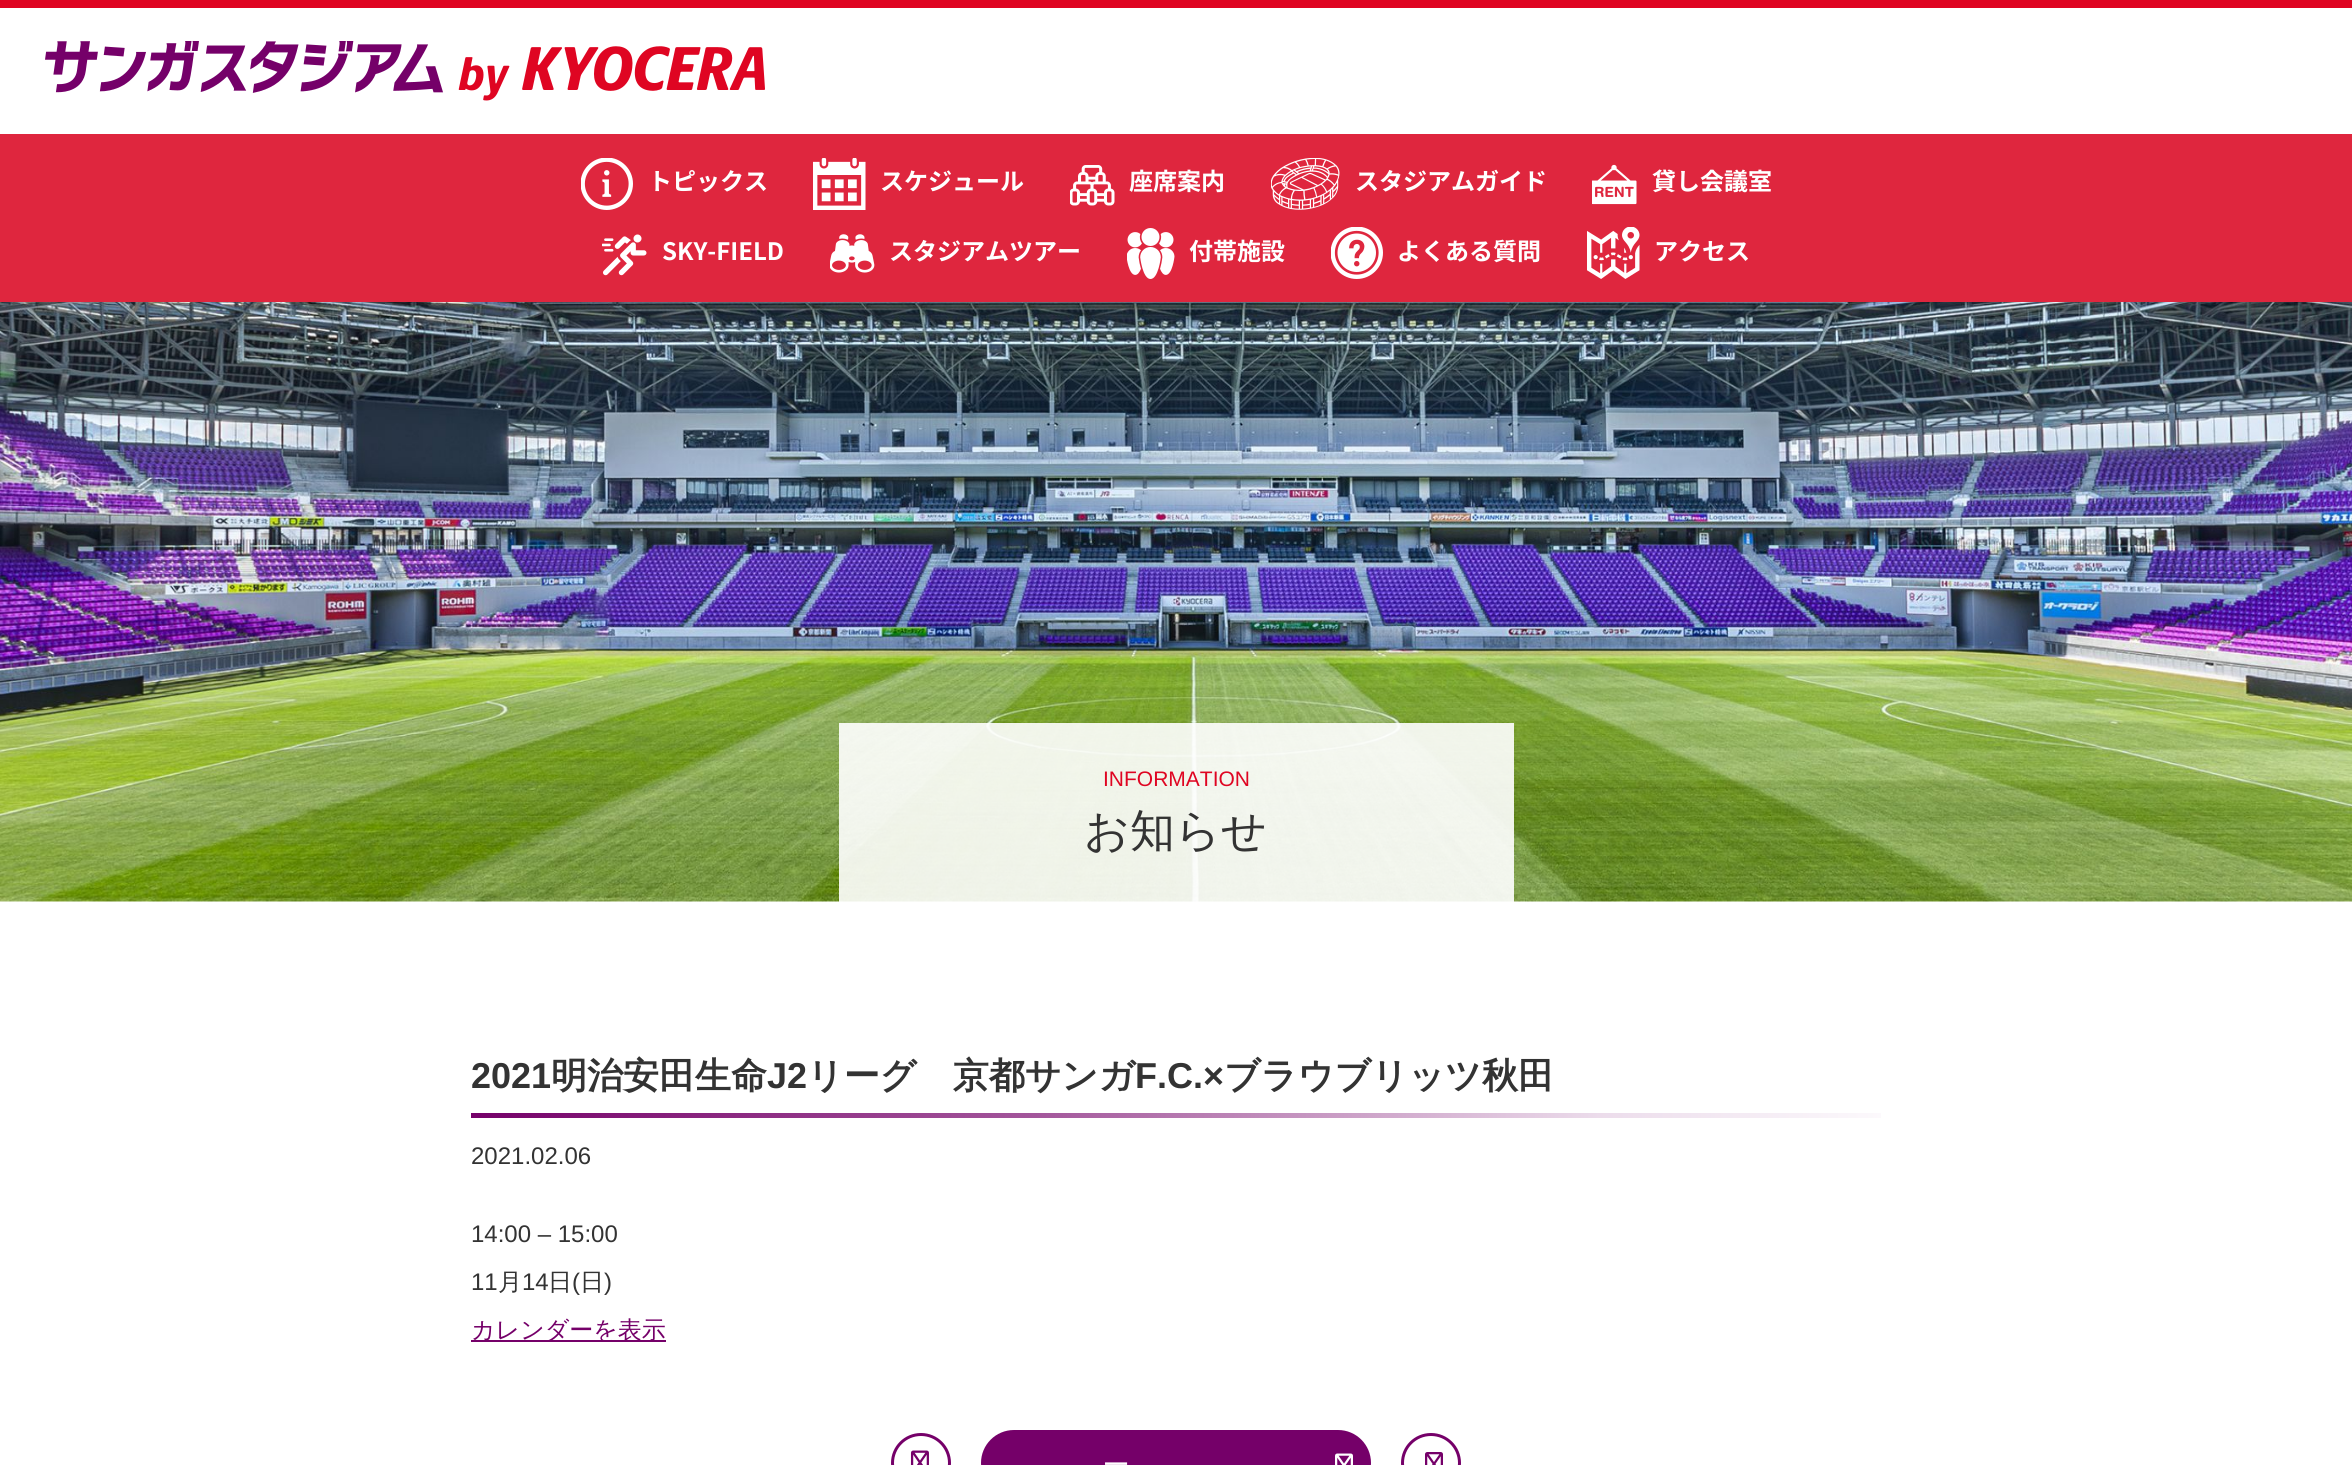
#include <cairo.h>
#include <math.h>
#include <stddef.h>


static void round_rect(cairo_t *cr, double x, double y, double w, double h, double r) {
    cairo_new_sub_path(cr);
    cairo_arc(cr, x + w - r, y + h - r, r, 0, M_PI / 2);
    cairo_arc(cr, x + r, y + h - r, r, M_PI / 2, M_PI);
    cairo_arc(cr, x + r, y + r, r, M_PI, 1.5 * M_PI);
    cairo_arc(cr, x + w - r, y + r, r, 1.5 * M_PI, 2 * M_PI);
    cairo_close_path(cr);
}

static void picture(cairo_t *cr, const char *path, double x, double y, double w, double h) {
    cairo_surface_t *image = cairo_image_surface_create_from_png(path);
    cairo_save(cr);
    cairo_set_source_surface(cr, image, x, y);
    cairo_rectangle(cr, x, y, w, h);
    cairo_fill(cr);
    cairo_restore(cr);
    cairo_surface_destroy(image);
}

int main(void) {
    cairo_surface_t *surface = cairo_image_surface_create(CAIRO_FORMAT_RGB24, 2352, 1465);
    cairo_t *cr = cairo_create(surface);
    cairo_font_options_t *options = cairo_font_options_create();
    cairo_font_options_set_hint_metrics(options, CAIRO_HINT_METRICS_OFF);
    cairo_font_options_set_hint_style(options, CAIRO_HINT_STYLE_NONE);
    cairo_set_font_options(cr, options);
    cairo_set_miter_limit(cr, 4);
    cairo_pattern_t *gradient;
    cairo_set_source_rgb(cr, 1, 1, 1);
    cairo_paint(cr);
    cairo_set_source_rgb(cr, 0.875, 0.02, 0.133);
    cairo_rectangle(cr, 0, 0, 2352, 8);
    cairo_fill(cr);
    picture(cr, "img1.png", 45, 41, 720, 60);
    cairo_set_source_rgb(cr, 0.875, 0.149, 0.243);
    cairo_rectangle(cr, 0, 134, 2352, 168);
    cairo_fill(cr);
    picture(cr, "img2.png", 581, 158, 52, 52);
    cairo_select_font_face(cr, "Noto Sans JP", CAIRO_FONT_SLANT_NORMAL, CAIRO_FONT_WEIGHT_BOLD);
    cairo_set_font_size(cr, 24);
    cairo_set_source_rgb(cr, 1, 1, 1);
    cairo_move_to(cr, 648, 190);
    cairo_show_text(cr, "トピックス");
    picture(cr, "img3.png", 813, 158, 53, 52);
    cairo_move_to(cr, 880, 190);
    cairo_show_text(cr, "スケジュール");
    picture(cr, "img4.png", 1070, 165, 45, 41);
    cairo_move_to(cr, 1129, 190);
    cairo_show_text(cr, "座席案内");
    picture(cr, "img5.png", 1271, 158, 69, 52);
    cairo_move_to(cr, 1355, 190);
    cairo_show_text(cr, "スタジアムガイド");
    picture(cr, "img6.png", 1592, 164, 45, 41);
    cairo_move_to(cr, 1652, 190);
    cairo_show_text(cr, "貸し会議室");
    picture(cr, "img7.png", 602, 234, 45, 42);
    cairo_move_to(cr, 662, 260);
    cairo_show_text(cr, "SKY-FIELD");
    picture(cr, "img8.png", 830, 234, 45, 39);
    cairo_move_to(cr, 889, 260);
    cairo_show_text(cr, "スタジアムツアー");
    picture(cr, "img9.png", 1127, 228, 48, 51);
    cairo_move_to(cr, 1189, 260);
    cairo_show_text(cr, "付帯施設");
    picture(cr, "img10.png", 1331, 227, 52, 52);
    cairo_move_to(cr, 1397, 260);
    cairo_show_text(cr, "よくある質問");
    picture(cr, "img11.png", 1587, 227, 53, 52);
    cairo_move_to(cr, 1654, 260);
    cairo_show_text(cr, "アクセス");
    picture(cr, "img12.png", 0, 302, 2352, 600);
    cairo_set_source_rgba(cr, 1, 1, 1, 0.9);
    cairo_rectangle(cr, 839, 723, 675, 179);
    cairo_fill(cr);
    cairo_select_font_face(cr, "Liberation Sans", CAIRO_FONT_SLANT_NORMAL, CAIRO_FONT_WEIGHT_NORMAL);
    cairo_set_font_size(cr, 21);
    cairo_set_source_rgb(cr, 0.875, 0.02, 0.133);
    cairo_move_to(cr, 1103, 786);
    cairo_show_text(cr, "INFORMATION");
    cairo_select_font_face(cr, "WenQuanYi Zen Hei Medium", CAIRO_FONT_SLANT_NORMAL, CAIRO_FONT_WEIGHT_NORMAL);
    cairo_set_font_size(cr, 45);
    cairo_set_source_rgb(cr, 0.2, 0.2, 0.2);
    cairo_move_to(cr, 1084, 846);
    cairo_show_text(cr, "お知らせ");
    cairo_select_font_face(cr, "Liberation Sans", CAIRO_FONT_SLANT_NORMAL, CAIRO_FONT_WEIGHT_BOLD);
    cairo_set_font_size(cr, 36);
    cairo_move_to(cr, 471, 1088);
    cairo_show_text(cr, "2021");
    cairo_select_font_face(cr, "WenQuanYi Zen Hei", CAIRO_FONT_SLANT_NORMAL, CAIRO_FONT_WEIGHT_BOLD);
    cairo_move_to(cr, 551, 1088);
    cairo_show_text(cr, "明治安田生命");
    cairo_select_font_face(cr, "Liberation Sans", CAIRO_FONT_SLANT_NORMAL, CAIRO_FONT_WEIGHT_BOLD);
    cairo_move_to(cr, 767, 1088);
    cairo_show_text(cr, "J2");
    cairo_select_font_face(cr, "WenQuanYi Zen Hei", CAIRO_FONT_SLANT_NORMAL, CAIRO_FONT_WEIGHT_BOLD);
    cairo_move_to(cr, 807, 1088);
    cairo_show_text(cr, "リーグ　京都サンガ");
    cairo_select_font_face(cr, "Liberation Sans", CAIRO_FONT_SLANT_NORMAL, CAIRO_FONT_WEIGHT_BOLD);
    cairo_move_to(cr, 1135, 1088);
    cairo_show_text(cr, "F.C.×");
    cairo_select_font_face(cr, "WenQuanYi Zen Hei", CAIRO_FONT_SLANT_NORMAL, CAIRO_FONT_WEIGHT_BOLD);
    cairo_move_to(cr, 1224, 1088);
    cairo_show_text(cr, "ブラウブリッツ秋田");
    gradient = cairo_pattern_create_linear(471, 1115, 1881, 1115);
    cairo_pattern_add_color_stop_rgba(gradient, 0, 0.459, 0, 0.412, 1);
    cairo_pattern_add_color_stop_rgba(gradient, 0.2, 0.553, 0.173, 0.514, 1);
    cairo_pattern_add_color_stop_rgba(gradient, 0.4, 0.639, 0.337, 0.608, 1);
    cairo_pattern_add_color_stop_rgba(gradient, 0.6, 0.78, 0.596, 0.761, 1);
    cairo_pattern_add_color_stop_rgba(gradient, 0.8, 0.925, 0.863, 0.922, 1);
    cairo_pattern_add_color_stop_rgba(gradient, 1, 0.988, 0.976, 0.988, 1);
    cairo_set_source(cr, gradient);
    cairo_pattern_destroy(gradient);
    cairo_rectangle(cr, 471, 1113, 1410, 5);
    cairo_fill(cr);
    cairo_select_font_face(cr, "Liberation Sans", CAIRO_FONT_SLANT_NORMAL, CAIRO_FONT_WEIGHT_NORMAL);
    cairo_set_font_size(cr, 24);
    cairo_set_source_rgb(cr, 0.2, 0.2, 0.2);
    cairo_move_to(cr, 471, 1164);
    cairo_show_text(cr, "2021.02.06");
    cairo_move_to(cr, 471, 1242);
    cairo_show_text(cr, "14:00 – 15:00");
    cairo_move_to(cr, 471, 1290);
    cairo_show_text(cr, "11");
    cairo_select_font_face(cr, "WenQuanYi Zen Hei Medium", CAIRO_FONT_SLANT_NORMAL, CAIRO_FONT_WEIGHT_NORMAL);
    cairo_move_to(cr, 498, 1290);
    cairo_show_text(cr, "月");
    cairo_select_font_face(cr, "Liberation Sans", CAIRO_FONT_SLANT_NORMAL, CAIRO_FONT_WEIGHT_NORMAL);
    cairo_move_to(cr, 522, 1290);
    cairo_show_text(cr, "14");
    cairo_select_font_face(cr, "WenQuanYi Zen Hei Medium", CAIRO_FONT_SLANT_NORMAL, CAIRO_FONT_WEIGHT_NORMAL);
    cairo_move_to(cr, 548, 1290);
    cairo_show_text(cr, "日");
    cairo_select_font_face(cr, "Liberation Sans", CAIRO_FONT_SLANT_NORMAL, CAIRO_FONT_WEIGHT_NORMAL);
    cairo_move_to(cr, 572, 1290);
    cairo_show_text(cr, "(");
    cairo_select_font_face(cr, "WenQuanYi Zen Hei Medium", CAIRO_FONT_SLANT_NORMAL, CAIRO_FONT_WEIGHT_NORMAL);
    cairo_move_to(cr, 580, 1290);
    cairo_show_text(cr, "日");
    cairo_select_font_face(cr, "Liberation Sans", CAIRO_FONT_SLANT_NORMAL, CAIRO_FONT_WEIGHT_NORMAL);
    cairo_move_to(cr, 604, 1290);
    cairo_show_text(cr, ")");
    cairo_set_source_rgb(cr, 0.459, 0, 0.412);
    cairo_rectangle(cr, 471, 1340, 195, 2);
    cairo_fill(cr);
    cairo_select_font_face(cr, "WenQuanYi Zen Hei Medium", CAIRO_FONT_SLANT_NORMAL, CAIRO_FONT_WEIGHT_NORMAL);
    cairo_move_to(cr, 471, 1338);
    cairo_show_text(cr, "カレンダーを表示");
    cairo_new_path(cr);
    cairo_arc(cr, 921, 1463, 28.5, 0, 2 * M_PI);
    cairo_set_line_width(cr, 3);
    cairo_stroke(cr);
    picture(cr, "img13.png", 910, 1450, 19, 15);
    round_rect(cr, 981, 1430, 390, 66, 33);
    cairo_fill(cr);
    cairo_select_font_face(cr, "Noto Sans JP Medium", CAIRO_FONT_SLANT_NORMAL, CAIRO_FONT_WEIGHT_NORMAL);
    cairo_set_source_rgb(cr, 1, 1, 1);
    cairo_move_to(cr, 1104, 1473);
    cairo_show_text(cr, "一");
    picture(cr, "img14.png", 1335, 1453, 18, 12);
    cairo_arc(cr, 1431, 1463, 28.5, 0, 2 * M_PI);
    cairo_set_source_rgb(cr, 0.459, 0, 0.412);
    cairo_stroke(cr);
    picture(cr, "img15.png", 1425, 1452, 18, 13);
    cairo_surface_write_to_png(surface, "page.png");
    cairo_font_options_destroy(options);
    cairo_destroy(cr);
    cairo_surface_destroy(surface);
    return 0;
}
